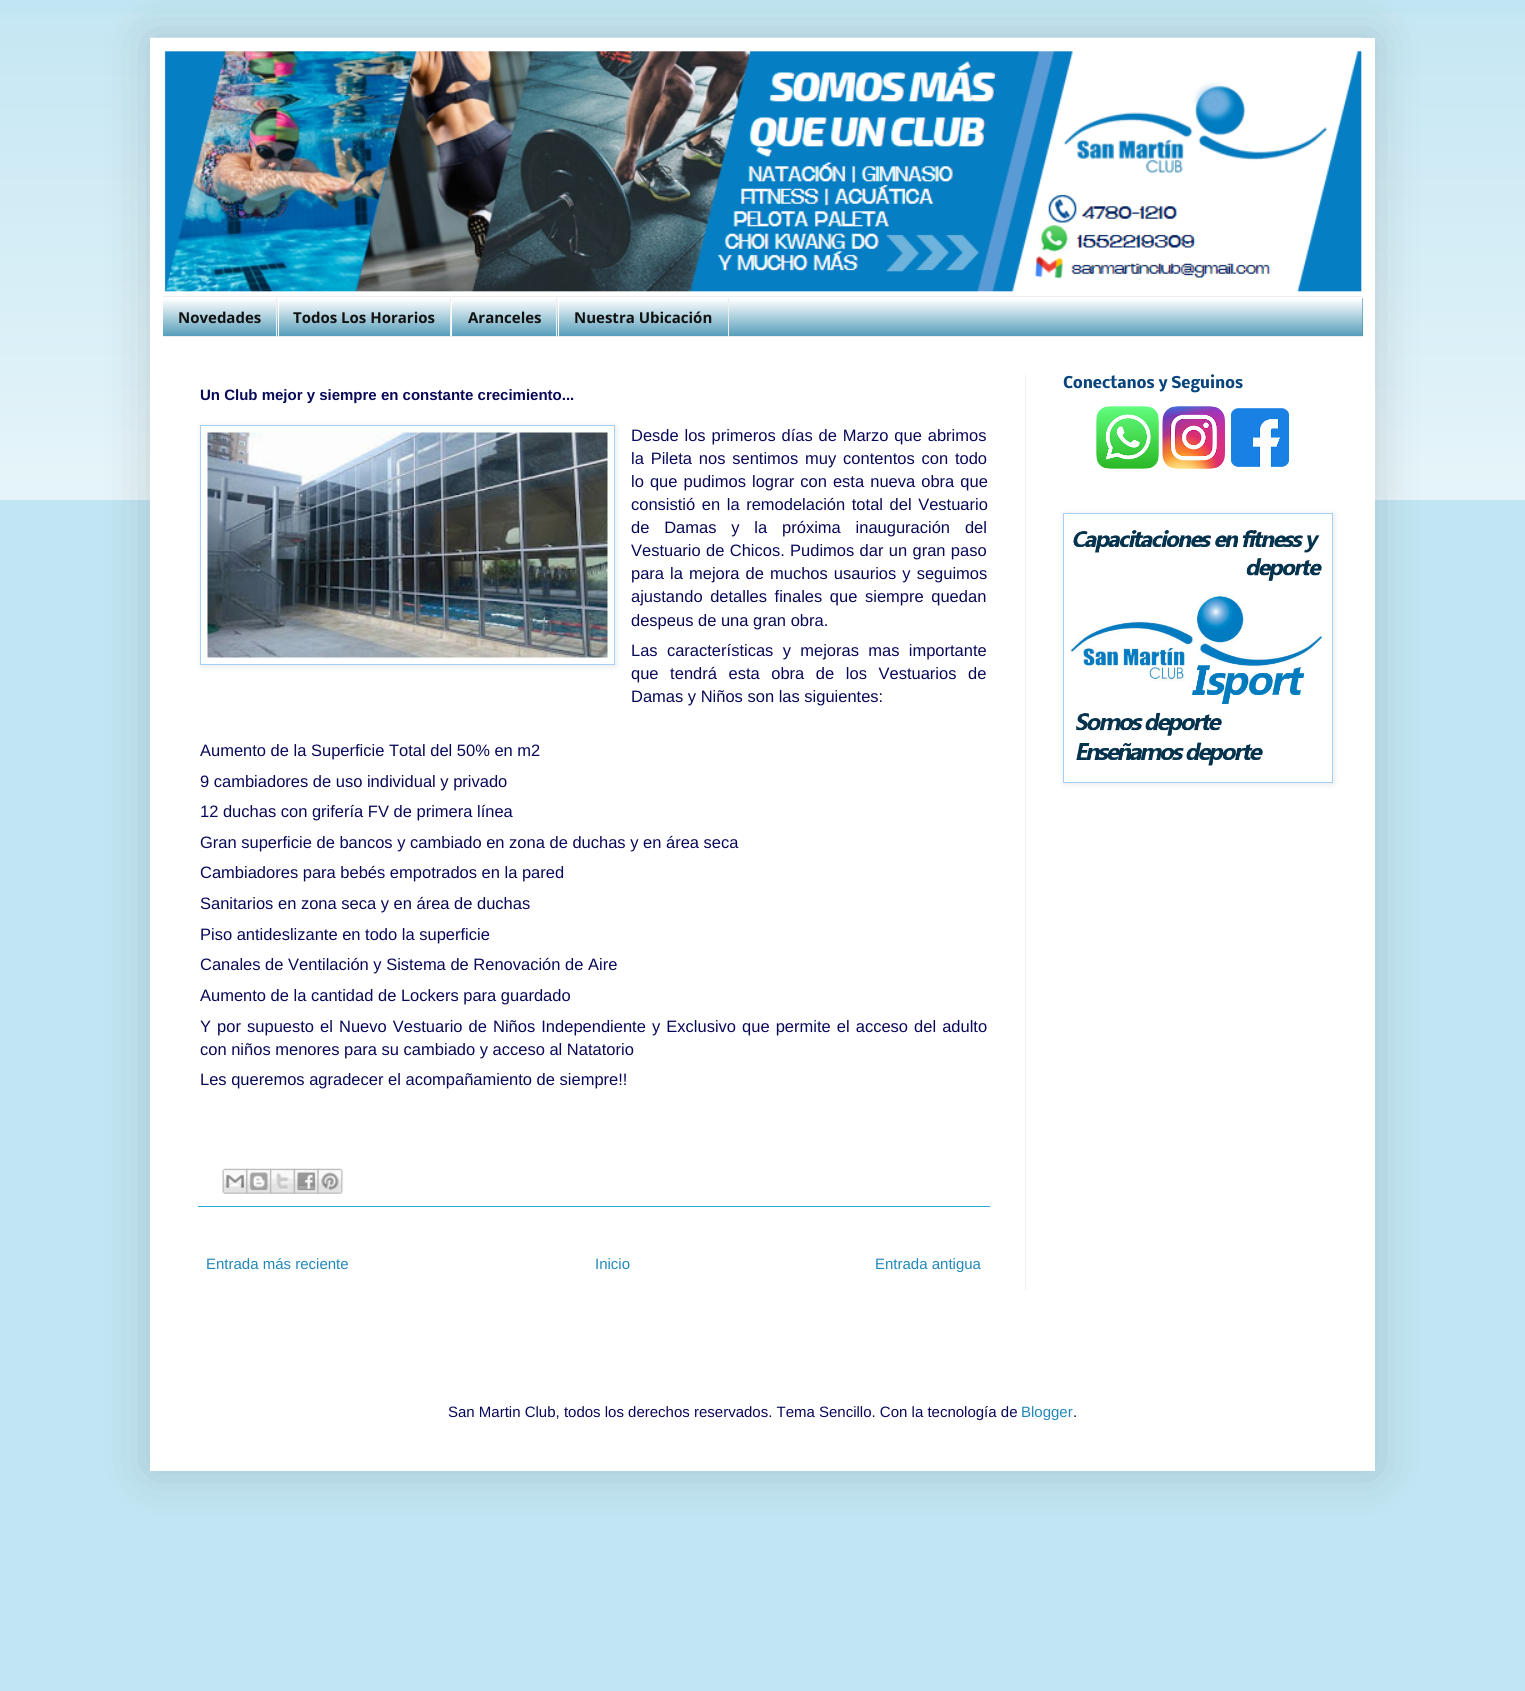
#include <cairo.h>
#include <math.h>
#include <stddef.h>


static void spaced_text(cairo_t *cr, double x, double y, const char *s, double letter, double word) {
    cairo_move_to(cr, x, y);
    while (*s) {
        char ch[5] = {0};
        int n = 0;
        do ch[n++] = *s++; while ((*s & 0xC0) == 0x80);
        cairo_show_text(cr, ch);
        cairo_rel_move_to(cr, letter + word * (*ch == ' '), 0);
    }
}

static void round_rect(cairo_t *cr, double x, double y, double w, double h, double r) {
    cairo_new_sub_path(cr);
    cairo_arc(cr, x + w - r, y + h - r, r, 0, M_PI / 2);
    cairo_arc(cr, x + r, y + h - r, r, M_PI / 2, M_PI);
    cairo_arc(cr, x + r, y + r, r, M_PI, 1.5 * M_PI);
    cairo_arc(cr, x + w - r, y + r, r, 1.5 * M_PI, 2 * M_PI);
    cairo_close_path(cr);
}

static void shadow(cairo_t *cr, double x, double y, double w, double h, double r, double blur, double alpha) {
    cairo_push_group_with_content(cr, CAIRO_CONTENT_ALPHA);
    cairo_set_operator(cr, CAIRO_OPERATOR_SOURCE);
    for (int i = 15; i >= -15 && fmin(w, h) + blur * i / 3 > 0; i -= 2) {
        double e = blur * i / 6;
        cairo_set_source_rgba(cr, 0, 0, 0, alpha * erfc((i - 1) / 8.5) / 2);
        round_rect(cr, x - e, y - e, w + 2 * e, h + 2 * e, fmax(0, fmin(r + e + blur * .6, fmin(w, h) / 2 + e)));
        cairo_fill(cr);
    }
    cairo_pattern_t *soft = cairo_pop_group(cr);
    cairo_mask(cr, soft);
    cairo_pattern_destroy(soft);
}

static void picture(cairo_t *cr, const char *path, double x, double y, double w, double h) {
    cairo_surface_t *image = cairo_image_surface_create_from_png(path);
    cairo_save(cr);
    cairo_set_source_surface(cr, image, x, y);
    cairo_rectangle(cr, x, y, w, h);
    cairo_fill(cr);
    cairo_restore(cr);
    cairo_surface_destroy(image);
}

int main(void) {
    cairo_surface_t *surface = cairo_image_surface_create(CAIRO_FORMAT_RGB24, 1525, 1691);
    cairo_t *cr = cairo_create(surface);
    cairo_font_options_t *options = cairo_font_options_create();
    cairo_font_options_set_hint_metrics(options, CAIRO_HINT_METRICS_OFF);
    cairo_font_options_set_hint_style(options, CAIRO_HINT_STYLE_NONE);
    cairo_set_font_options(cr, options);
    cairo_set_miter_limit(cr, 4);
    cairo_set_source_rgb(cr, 0.757, 0.898, 0.949);
    cairo_paint(cr);
    picture(cr, "img1.png", 0, 13, 1525, 487);
    cairo_set_source_rgb(cr, 0, 0, 0);
    shadow(cr, 150, 38, 1225, 1433, 0, 25, 0.15);
    cairo_set_source_rgb(cr, 1, 1, 1);
    cairo_rectangle(cr, 150, 38, 1225, 1433);
    cairo_fill(cr);
    picture(cr, "img2.png", 150, 37, 1213, 255);
    cairo_set_source_rgb(cr, 0.157, 0.514, 0.655);
    cairo_rectangle(cr, 163, 298, 1200, 38);
    cairo_fill(cr);
    picture(cr, "img3.png", 163, 298, 1200, 38);
    cairo_set_source_rgb(cr, 0.933, 0.933, 0.933);
    cairo_rectangle(cr, 163, 296, 1200, 1);
    cairo_fill(cr);
    cairo_rectangle(cr, 163, 336, 1200, 1);
    cairo_fill(cr);
    cairo_rectangle(cr, 276, 298, 1, 38);
    cairo_fill(cr);
    cairo_select_font_face(cr, "Open Sans", CAIRO_FONT_SLANT_NORMAL, CAIRO_FONT_WEIGHT_BOLD);
    cairo_set_font_size(cr, 15);
    cairo_set_source_rgb(cr, 0.067, 0.067, 0.067);
    cairo_move_to(cr, 178, 323);
    cairo_show_text(cr, "Novedades");
    cairo_set_source_rgb(cr, 0.933, 0.933, 0.933);
    cairo_rectangle(cr, 450, 298, 1, 38);
    cairo_fill(cr);
    cairo_set_source_rgb(cr, 1, 1, 1);
    cairo_rectangle(cr, 278, 298, 1, 38);
    cairo_fill(cr);
    cairo_set_source_rgb(cr, 0.067, 0.067, 0.067);
    cairo_move_to(cr, 293, 323);
    cairo_show_text(cr, "Todos Los Horarios");
    cairo_set_source_rgb(cr, 0.933, 0.933, 0.933);
    cairo_rectangle(cr, 556, 298, 1, 38);
    cairo_fill(cr);
    cairo_set_source_rgb(cr, 1, 1, 1);
    cairo_rectangle(cr, 451, 298, 1, 38);
    cairo_fill(cr);
    cairo_set_source_rgb(cr, 0.067, 0.067, 0.067);
    cairo_move_to(cr, 468, 323);
    cairo_show_text(cr, "Aranceles");
    cairo_set_source_rgb(cr, 0.933, 0.933, 0.933);
    cairo_rectangle(cr, 728, 298, 1, 38);
    cairo_fill(cr);
    cairo_set_source_rgb(cr, 1, 1, 1);
    cairo_rectangle(cr, 558, 298, 1, 38);
    cairo_fill(cr);
    cairo_set_source_rgb(cr, 0.067, 0.067, 0.067);
    cairo_move_to(cr, 574, 323);
    cairo_show_text(cr, "Nuestra Ubicación");
    cairo_select_font_face(cr, "Nobile", CAIRO_FONT_SLANT_NORMAL, CAIRO_FONT_WEIGHT_BOLD);
    cairo_set_source_rgb(cr, 0.035, 0.271, 0.49);
    cairo_move_to(cr, 1063, 388);
    cairo_show_text(cr, "Conectanos y Seguinos");
    picture(cr, "img4.png", 1096, 406, 63, 63);
    picture(cr, "img5.png", 1162, 406, 63, 63);
    picture(cr, "img6.png", 1231, 408, 58, 59);
    cairo_set_source_rgb(cr, 0, 0, 0);
    shadow(cr, 1064, 514, 270, 270, 0, 3, 0.1);
    cairo_set_source_rgb(cr, 1, 1, 1);
    cairo_rectangle(cr, 1063.5, 513.5, 269, 269);
    cairo_fill_preserve(cr);
    cairo_set_source_rgb(cr, 0.643, 0.812, 0.965);
    cairo_set_line_width(cr, 1);
    cairo_stroke(cr);
    picture(cr, "img7.png", 1070, 530, 255, 236);
    cairo_select_font_face(cr, "Liberation Sans", CAIRO_FONT_SLANT_NORMAL, CAIRO_FONT_WEIGHT_BOLD);
    cairo_set_source_rgb(cr, 0.035, 0.035, 0.349);
    cairo_move_to(cr, 200, 400);
    cairo_show_text(cr, "Un Club mejor y siempre en constante crecimiento...");
    cairo_save(cr);
    cairo_set_fill_rule(cr, CAIRO_FILL_RULE_EVEN_ODD);
    cairo_new_path(cr);
    cairo_move_to(cr, 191, 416);
    cairo_line_to(cr, 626, 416);
    cairo_line_to(cr, 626, 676);
    cairo_line_to(cr, 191, 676);
    cairo_close_path(cr);
    cairo_move_to(cr, 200, 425);
    cairo_line_to(cr, 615, 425);
    cairo_line_to(cr, 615, 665);
    cairo_line_to(cr, 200, 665);
    cairo_close_path(cr);
    cairo_clip(cr);
    cairo_set_source_rgb(cr, 0, 0, 0);
    shadow(cr, 201, 426, 415, 240, 0, 3, 0.1);
    cairo_restore(cr);
    cairo_rectangle(cr, 200.5, 425.5, 414, 239);
    cairo_set_source_rgb(cr, 0.643, 0.812, 0.965);
    cairo_stroke(cr);
    picture(cr, "img8.png", 207, 432, 401, 226);
    cairo_select_font_face(cr, "Liberation Sans", CAIRO_FONT_SLANT_NORMAL, CAIRO_FONT_WEIGHT_NORMAL);
    cairo_set_font_size(cr, 16.5);
    cairo_set_source_rgb(cr, 0.035, 0.035, 0.349);
    spaced_text(cr, 631, 441, "Desde los primeros días de Marzo que abrimos", 0, 1.25);
    spaced_text(cr, 631, 464, "la Pileta nos sentimos muy contentos con todo", 0, 2.25);
    spaced_text(cr, 631, 487, "lo que pudimos lograr con esta nueva obra que", 0, 1.5);
    spaced_text(cr, 631, 510, "consistió en la remodelación total del Vestuario", 0, 2);
    spaced_text(cr, 631, 533, "de Damas y la próxima inauguración del", 0, 10.25);
    spaced_text(cr, 631, 556, "Vestuario de Chicos. Pudimos dar un gran paso", 0, 0.75);
    spaced_text(cr, 631, 579, "para la mejora de muchos usaurios y seguimos", 0, 1.5);
    spaced_text(cr, 631, 602, "ajustando detalles finales que siempre quedan", 0, 3);
    cairo_move_to(cr, 631, 626);
    cairo_show_text(cr, "despeus de una gran obra.");
    spaced_text(cr, 631, 656, "Las características y mejoras mas importante", 0, 4.75);
    spaced_text(cr, 631, 679, "que tendrá esta obra de los Vestuarios de", 0, 7);
    cairo_move_to(cr, 631, 702);
    cairo_show_text(cr, "Damas y Niños son las siguientes:");
    cairo_move_to(cr, 200, 756);
    cairo_show_text(cr, "Aumento de la Superficie Total del 50% en m2");
    cairo_move_to(cr, 200, 787);
    cairo_show_text(cr, "9 cambiadores de uso individual y privado");
    cairo_move_to(cr, 200, 817);
    cairo_show_text(cr, "12 duchas con grifería FV de primera línea");
    cairo_move_to(cr, 200, 848);
    cairo_show_text(cr, "Gran superficie de bancos y cambiado en zona de duchas y en área seca");
    cairo_move_to(cr, 200, 878);
    cairo_show_text(cr, "Cambiadores para bebés empotrados en la pared");
    cairo_move_to(cr, 200, 909);
    cairo_show_text(cr, "Sanitarios en zona seca y en área de duchas");
    cairo_move_to(cr, 200, 940);
    cairo_show_text(cr, "Piso antideslizante en todo la superficie");
    cairo_move_to(cr, 200, 970);
    cairo_show_text(cr, "Canales de Ventilación y Sistema de Renovación de Aire");
    cairo_move_to(cr, 200, 1001);
    cairo_show_text(cr, "Aumento de la cantidad de Lockers para guardado");
    spaced_text(cr, 200, 1032, "Y por supuesto el Nuevo Vestuario de Niños Independiente y Exclusivo que permite el acceso del adulto", 0, 1.5);
    cairo_move_to(cr, 200, 1055);
    cairo_show_text(cr, "con niños menores para su cambiado y acceso al Natatorio");
    cairo_move_to(cr, 200, 1085);
    cairo_show_text(cr, "Les queremos agradecer el acompañamiento de siempre!!");
    cairo_set_source_rgb(cr, 0.165, 0.667, 0.867);
    cairo_rectangle(cr, 198, 1206, 792, 1);
    cairo_fill(cr);
    picture(cr, "img9.png", 222, 1168, 26, 26);
    picture(cr, "img10.png", 246, 1168, 26, 26);
    picture(cr, "img11.png", 270, 1168, 25, 26);
    picture(cr, "img12.png", 293, 1168, 26, 26);
    picture(cr, "img13.png", 317, 1168, 26, 26);
    cairo_set_font_size(cr, 15);
    cairo_set_source_rgb(cr, 0.133, 0.533, 0.733);
    cairo_move_to(cr, 206, 1269);
    cairo_show_text(cr, "Entrada más reciente");
    cairo_move_to(cr, 595, 1269);
    cairo_show_text(cr, "Inicio");
    cairo_move_to(cr, 875, 1269);
    cairo_show_text(cr, "Entrada antigua");
    cairo_set_source_rgb(cr, 0.933, 0.933, 0.933);
    cairo_rectangle(cr, 1025, 375, 1, 915);
    cairo_fill(cr);
    cairo_set_source_rgb(cr, 0.035, 0.035, 0.349);
    cairo_move_to(cr, 448, 1417);
    cairo_show_text(cr, "San Martin Club, todos los derechos reservados. Tema Sencillo. Con la tecnología de");
    cairo_set_source_rgb(cr, 0.133, 0.533, 0.733);
    cairo_move_to(cr, 1021, 1417);
    cairo_show_text(cr, "Blogger");
    cairo_set_source_rgb(cr, 0.035, 0.035, 0.349);
    cairo_move_to(cr, 1073, 1417);
    cairo_show_text(cr, ".");
    cairo_surface_write_to_png(surface, "page.png");
    cairo_font_options_destroy(options);
    cairo_destroy(cr);
    cairo_surface_destroy(surface);
    return 0;
}
